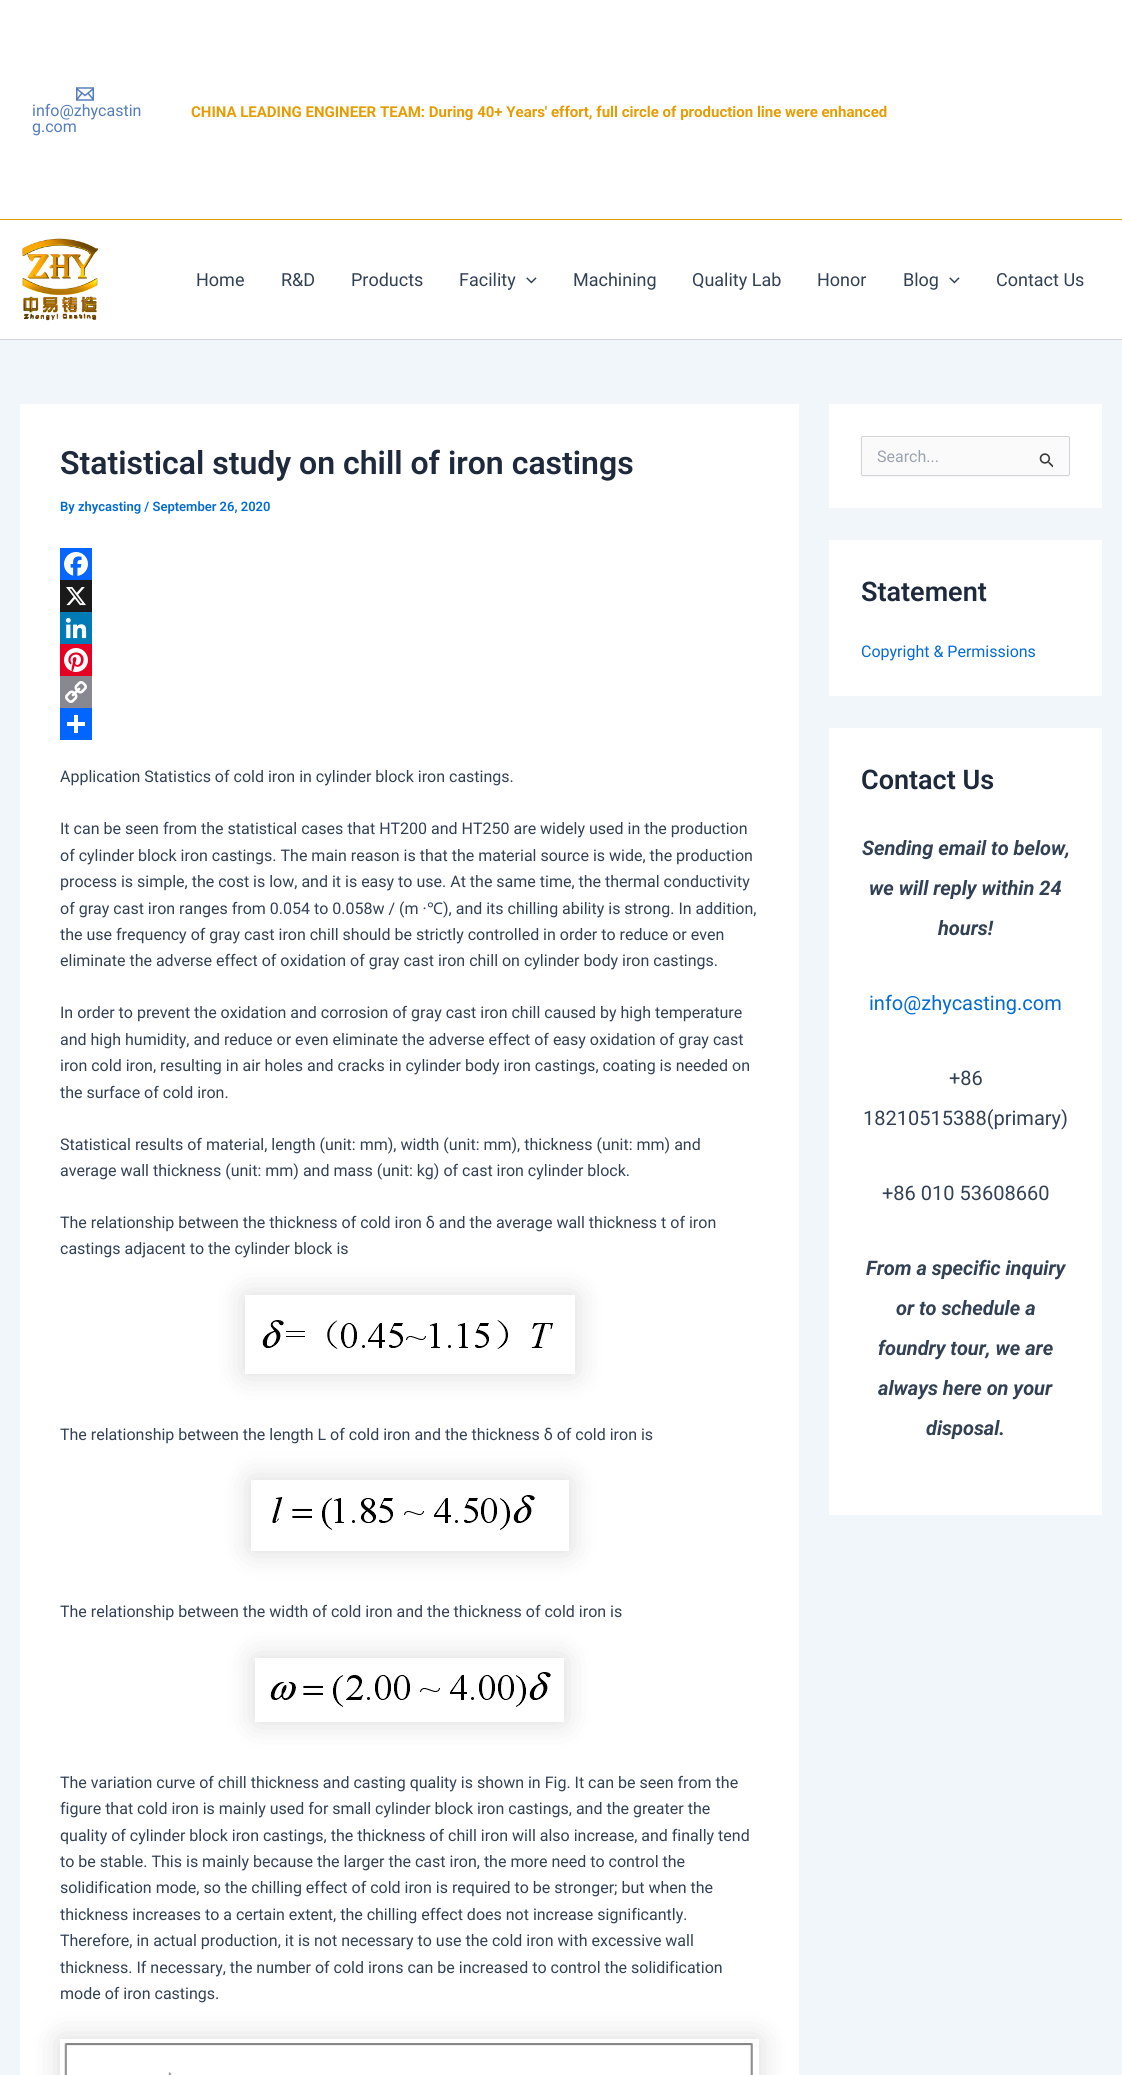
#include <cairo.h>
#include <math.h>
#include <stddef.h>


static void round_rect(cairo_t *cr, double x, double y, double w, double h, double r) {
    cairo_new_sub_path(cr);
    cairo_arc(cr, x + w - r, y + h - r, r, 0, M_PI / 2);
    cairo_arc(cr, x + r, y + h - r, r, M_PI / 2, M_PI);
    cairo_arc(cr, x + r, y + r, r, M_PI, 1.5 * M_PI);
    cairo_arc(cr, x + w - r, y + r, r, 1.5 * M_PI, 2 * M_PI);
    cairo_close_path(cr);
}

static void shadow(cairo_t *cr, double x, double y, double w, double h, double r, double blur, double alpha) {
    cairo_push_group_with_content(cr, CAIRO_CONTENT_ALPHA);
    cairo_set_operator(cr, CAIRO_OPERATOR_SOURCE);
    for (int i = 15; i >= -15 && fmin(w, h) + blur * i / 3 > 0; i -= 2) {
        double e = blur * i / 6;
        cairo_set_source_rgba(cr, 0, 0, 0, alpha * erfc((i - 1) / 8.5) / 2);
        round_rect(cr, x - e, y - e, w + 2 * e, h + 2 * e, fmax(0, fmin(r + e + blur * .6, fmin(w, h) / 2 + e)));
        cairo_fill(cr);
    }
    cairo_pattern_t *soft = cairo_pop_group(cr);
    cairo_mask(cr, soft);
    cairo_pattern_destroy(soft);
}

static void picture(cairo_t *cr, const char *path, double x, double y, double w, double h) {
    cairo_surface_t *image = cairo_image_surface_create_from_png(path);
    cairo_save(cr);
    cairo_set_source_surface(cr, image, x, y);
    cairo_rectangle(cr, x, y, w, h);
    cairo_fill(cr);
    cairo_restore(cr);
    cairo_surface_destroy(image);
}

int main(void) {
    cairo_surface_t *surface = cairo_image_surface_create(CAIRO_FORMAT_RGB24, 1122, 2075);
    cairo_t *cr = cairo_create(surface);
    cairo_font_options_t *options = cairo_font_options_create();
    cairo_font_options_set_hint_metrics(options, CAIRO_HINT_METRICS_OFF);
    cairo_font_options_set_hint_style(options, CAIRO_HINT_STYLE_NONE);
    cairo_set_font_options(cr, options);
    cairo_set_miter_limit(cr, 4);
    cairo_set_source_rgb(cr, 0.941, 0.961, 0.98);
    cairo_paint(cr);
    cairo_set_source_rgb(cr, 1, 1, 1);
    cairo_rectangle(cr, 0, 0, 1122, 219);
    cairo_fill(cr);
    cairo_set_source_rgb(cr, 0.898, 0.616, 0.024);
    cairo_rectangle(cr, 0, 219, 1122, 1);
    cairo_fill(cr);
    picture(cr, "img1.png", 76, 87, 18, 14);
    cairo_select_font_face(cr, "Roboto", CAIRO_FONT_SLANT_NORMAL, CAIRO_FONT_WEIGHT_NORMAL);
    cairo_set_font_size(cr, 16);
    cairo_set_source_rgb(cr, 0.333, 0.49, 0.737);
    cairo_move_to(cr, 32, 116);
    cairo_show_text(cr, "info@zhycastin");
    cairo_move_to(cr, 32, 132);
    cairo_show_text(cr, "g.com");
    cairo_select_font_face(cr, "Roboto", CAIRO_FONT_SLANT_NORMAL, CAIRO_FONT_WEIGHT_BOLD);
    cairo_set_font_size(cr, 15);
    cairo_set_source_rgb(cr, 0.898, 0.616, 0.024);
    cairo_move_to(cr, 191, 117);
    cairo_show_text(cr, "CHINA LEADING ENGINEER TEAM: During 40+ Years' effort, full circle of production line were enhanced");
    cairo_set_source_rgb(cr, 1, 1, 1);
    cairo_rectangle(cr, 0, 220, 1122, 119);
    cairo_fill(cr);
    cairo_set_source_rgb(cr, 0.82, 0.835, 0.859);
    cairo_rectangle(cr, 0, 339, 1122, 1);
    cairo_fill(cr);
    picture(cr, "img2.png", 22, 238, 77, 83);
    cairo_select_font_face(cr, "Roboto", CAIRO_FONT_SLANT_NORMAL, CAIRO_FONT_WEIGHT_NORMAL);
    cairo_set_font_size(cr, 18);
    cairo_set_source_rgb(cr, 0.2, 0.255, 0.333);
    cairo_move_to(cr, 196, 286);
    cairo_show_text(cr, "Home");
    cairo_move_to(cr, 281, 286);
    cairo_show_text(cr, "R&D");
    cairo_move_to(cr, 351, 286);
    cairo_show_text(cr, "Products");
    cairo_move_to(cr, 459, 286);
    cairo_show_text(cr, "Facility");
    picture(cr, "img3.png", 526, 277, 11, 7);
    cairo_move_to(cr, 573, 286);
    cairo_show_text(cr, "Machining");
    cairo_move_to(cr, 692, 286);
    cairo_show_text(cr, "Quality Lab");
    cairo_move_to(cr, 817, 286);
    cairo_show_text(cr, "Honor");
    cairo_move_to(cr, 903, 286);
    cairo_show_text(cr, "Blog");
    picture(cr, "img3.png", 949, 277, 11, 7);
    cairo_move_to(cr, 996, 286);
    cairo_show_text(cr, "Contact Us");
    cairo_set_source_rgb(cr, 1, 1, 1);
    cairo_rectangle(cr, 20, 404, 779, 1671);
    cairo_fill(cr);
    cairo_select_font_face(cr, "Roboto SemiBold", CAIRO_FONT_SLANT_NORMAL, CAIRO_FONT_WEIGHT_NORMAL);
    cairo_set_font_size(cr, 32);
    cairo_set_source_rgb(cr, 0.118, 0.161, 0.231);
    cairo_move_to(cr, 60, 474);
    cairo_show_text(cr, "Statistical study on chill of iron castings");
    cairo_set_font_size(cr, 13);
    cairo_set_source_rgb(cr, 0.016, 0.42, 0.824);
    cairo_move_to(cr, 60, 511);
    cairo_show_text(cr, "By zhycasting / September 26, 2020");
    cairo_set_source_rgb(cr, 0.031, 0.4, 1);
    cairo_rectangle(cr, 60, 548, 32, 32);
    cairo_fill(cr);
    picture(cr, "img4.png", 64, 552, 24, 24);
    cairo_set_source_rgb(cr, 0.102, 0.102, 0.102);
    cairo_rectangle(cr, 60, 580, 32, 32);
    cairo_fill(cr);
    picture(cr, "img5.png", 66, 587, 20, 19);
    cairo_set_source_rgb(cr, 0, 0.482, 0.71);
    cairo_rectangle(cr, 60, 612, 32, 32);
    cairo_fill(cr);
    picture(cr, "img6.png", 65, 617, 22, 22);
    cairo_set_source_rgb(cr, 0.902, 0, 0.137);
    cairo_rectangle(cr, 60, 644, 32, 32);
    cairo_fill(cr);
    picture(cr, "img7.png", 64, 648, 24, 24);
    cairo_set_source_rgb(cr, 0.533, 0.537, 0.565);
    cairo_rectangle(cr, 60, 676, 32, 32);
    cairo_fill(cr);
    picture(cr, "img8.png", 65, 681, 22, 22);
    cairo_set_source_rgb(cr, 0.004, 0.4, 1);
    cairo_rectangle(cr, 60, 708, 32, 32);
    cairo_fill(cr);
    cairo_set_source_rgb(cr, 1, 1, 1);
    cairo_rectangle(cr, 74, 715, 4, 18);
    cairo_fill(cr);
    cairo_rectangle(cr, 67, 722, 18, 4);
    cairo_fill(cr);
    cairo_select_font_face(cr, "Roboto", CAIRO_FONT_SLANT_NORMAL, CAIRO_FONT_WEIGHT_NORMAL);
    cairo_set_font_size(cr, 16);
    cairo_set_source_rgb(cr, 0.2, 0.255, 0.333);
    cairo_move_to(cr, 60, 782);
    cairo_show_text(cr, "Application Statistics of cold iron in cylinder block iron castings.");
    cairo_move_to(cr, 60, 834);
    cairo_show_text(cr, "It can be seen from the statistical cases that HT200 and HT250 are widely used in the production");
    cairo_move_to(cr, 60, 861);
    cairo_show_text(cr, "of cylinder block iron castings. The main reason is that the material source is wide, the production");
    cairo_move_to(cr, 60, 887);
    cairo_show_text(cr, "process is simple, the cost is low, and it is easy to use. At the same time, the thermal conductivity");
    cairo_move_to(cr, 60, 914);
    cairo_show_text(cr, "of gray cast iron ranges from 0.054 to 0.058w / (m ·");
    cairo_select_font_face(cr, "Noto Sans", CAIRO_FONT_SLANT_NORMAL, CAIRO_FONT_WEIGHT_NORMAL);
    cairo_move_to(cr, 427, 914);
    cairo_show_text(cr, "℃");
    cairo_select_font_face(cr, "Roboto", CAIRO_FONT_SLANT_NORMAL, CAIRO_FONT_WEIGHT_NORMAL);
    cairo_move_to(cr, 443, 914);
    cairo_show_text(cr, "), and its chilling ability is strong. In addition,");
    cairo_move_to(cr, 60, 940);
    cairo_show_text(cr, "the use frequency of gray cast iron chill should be strictly controlled in order to reduce or even");
    cairo_move_to(cr, 60, 966);
    cairo_show_text(cr, "eliminate the adverse effect of oxidation of gray cast iron chill on cylinder body iron castings.");
    cairo_move_to(cr, 60, 1018);
    cairo_show_text(cr, "In order to prevent the oxidation and corrosion of gray cast iron chill caused by high temperature");
    cairo_move_to(cr, 60, 1045);
    cairo_show_text(cr, "and high humidity, and reduce or even eliminate the adverse effect of easy oxidation of gray cast");
    cairo_move_to(cr, 60, 1071);
    cairo_show_text(cr, "iron cold iron, resulting in air holes and cracks in cylinder body iron castings, coating is needed on");
    cairo_move_to(cr, 60, 1098);
    cairo_show_text(cr, "the surface of cold iron.");
    cairo_move_to(cr, 60, 1150);
    cairo_show_text(cr, "Statistical results of material, length (unit: mm), width (unit: mm), thickness (unit: mm) and");
    cairo_move_to(cr, 60, 1176);
    cairo_show_text(cr, "average wall thickness (unit: mm) and mass (unit: kg) of cast iron cylinder block.");
    cairo_move_to(cr, 60, 1228);
    cairo_show_text(cr, "The relationship between the thickness of cold iron δ and the average wall thickness t of iron");
    cairo_move_to(cr, 60, 1254);
    cairo_show_text(cr, "castings adjacent to the cylinder block is");
    cairo_save(cr);
    cairo_set_fill_rule(cr, CAIRO_FILL_RULE_EVEN_ODD);
    cairo_new_path(cr);
    cairo_move_to(cr, 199, 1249);
    cairo_line_to(cr, 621, 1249);
    cairo_line_to(cr, 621, 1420);
    cairo_line_to(cr, 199, 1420);
    cairo_close_path(cr);
    cairo_move_to(cr, 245, 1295);
    cairo_line_to(cr, 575, 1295);
    cairo_line_to(cr, 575, 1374);
    cairo_line_to(cr, 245, 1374);
    cairo_close_path(cr);
    cairo_clip(cr);
    cairo_set_source_rgb(cr, 0, 0, 0);
    shadow(cr, 245, 1295, 330, 79, 0, 15, 0.15);
    cairo_restore(cr);
    picture(cr, "img9.png", 262, 1320, 292, 29);
    cairo_move_to(cr, 60, 1440);
    cairo_show_text(cr, "The relationship between the length L of cold iron and the thickness δ of cold iron is");
    cairo_save(cr);
    cairo_set_fill_rule(cr, CAIRO_FILL_RULE_EVEN_ODD);
    cairo_new_path(cr);
    cairo_move_to(cr, 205, 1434);
    cairo_line_to(cr, 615, 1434);
    cairo_line_to(cr, 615, 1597);
    cairo_line_to(cr, 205, 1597);
    cairo_close_path(cr);
    cairo_move_to(cr, 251, 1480);
    cairo_line_to(cr, 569, 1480);
    cairo_line_to(cr, 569, 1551);
    cairo_line_to(cr, 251, 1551);
    cairo_close_path(cr);
    cairo_clip(cr);
    cairo_set_source_rgb(cr, 0, 0, 0);
    shadow(cr, 251, 1480, 318, 71, 0, 15, 0.15);
    cairo_restore(cr);
    picture(cr, "img10.png", 272, 1495, 263, 35);
    cairo_move_to(cr, 60, 1617);
    cairo_show_text(cr, "The relationship between the width of cold iron and the thickness of cold iron is");
    cairo_save(cr);
    cairo_set_fill_rule(cr, CAIRO_FILL_RULE_EVEN_ODD);
    cairo_new_path(cr);
    cairo_move_to(cr, 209, 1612);
    cairo_line_to(cr, 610, 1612);
    cairo_line_to(cr, 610, 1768);
    cairo_line_to(cr, 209, 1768);
    cairo_close_path(cr);
    cairo_move_to(cr, 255, 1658);
    cairo_line_to(cr, 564, 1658);
    cairo_line_to(cr, 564, 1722);
    cairo_line_to(cr, 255, 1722);
    cairo_close_path(cr);
    cairo_clip(cr);
    cairo_set_source_rgb(cr, 0, 0, 0);
    shadow(cr, 255, 1658, 309, 64, 0, 15, 0.15);
    cairo_restore(cr);
    picture(cr, "img11.png", 270, 1672, 281, 35);
    cairo_move_to(cr, 60, 1788);
    cairo_show_text(cr, "The variation curve of chill thickness and casting quality is shown in Fig. It can be seen from the");
    cairo_move_to(cr, 60, 1814);
    cairo_show_text(cr, "figure that cold iron is mainly used for small cylinder block iron castings, and the greater the");
    cairo_move_to(cr, 60, 1841);
    cairo_show_text(cr, "quality of cylinder block iron castings, the thickness of chill iron will also increase, and finally tend");
    cairo_move_to(cr, 60, 1867);
    cairo_show_text(cr, "to be stable. This is mainly because the larger the cast iron, the more need to control the");
    cairo_move_to(cr, 60, 1893);
    cairo_show_text(cr, "solidification mode, so the chilling effect of cold iron is required to be stronger; but when the");
    cairo_move_to(cr, 60, 1920);
    cairo_show_text(cr, "thickness increases to a certain extent, the chilling effect does not increase significantly.");
    cairo_move_to(cr, 60, 1946);
    cairo_show_text(cr, "Therefore, in actual production, it is not necessary to use the cold iron with excessive wall");
    cairo_move_to(cr, 60, 1973);
    cairo_show_text(cr, "thickness. If necessary, the number of cold irons can be increased to control the solidification");
    cairo_move_to(cr, 60, 1999);
    cairo_show_text(cr, "mode of iron castings.");
    cairo_save(cr);
    cairo_set_fill_rule(cr, CAIRO_FILL_RULE_EVEN_ODD);
    cairo_new_path(cr);
    cairo_move_to(cr, 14, 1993);
    cairo_line_to(cr, 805, 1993);
    cairo_line_to(cr, 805, 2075);
    cairo_line_to(cr, 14, 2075);
    cairo_close_path(cr);
    cairo_move_to(cr, 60, 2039);
    cairo_line_to(cr, 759, 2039);
    cairo_line_to(cr, 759, 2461);
    cairo_line_to(cr, 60, 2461);
    cairo_close_path(cr);
    cairo_clip(cr);
    cairo_set_source_rgb(cr, 0, 0, 0);
    shadow(cr, 60, 2039, 699, 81, 0, 15, 0.15);
    cairo_restore(cr);
    picture(cr, "img12.png", 64, 2043, 689, 32);
    cairo_set_source_rgb(cr, 1, 1, 1);
    cairo_rectangle(cr, 829, 404, 273, 104);
    cairo_fill(cr);
    cairo_set_source_rgb(cr, 0, 0, 0);
    shadow(cr, 861, 437, 209, 40, 2, 1, 0.05);
    cairo_set_source_rgb(cr, 0.98, 0.98, 0.98);
    round_rect(cr, 861.5, 436.5, 208, 39, 1.5);
    cairo_fill_preserve(cr);
    cairo_set_source_rgb(cr, 0.82, 0.835, 0.859);
    cairo_set_line_width(cr, 1);
    cairo_stroke(cr);
    cairo_set_source_rgb(cr, 0.612, 0.639, 0.686);
    cairo_move_to(cr, 877, 462);
    cairo_show_text(cr, "Search...");
    picture(cr, "img13.png", 1039, 453, 14, 15);
    cairo_set_source_rgb(cr, 1, 1, 1);
    cairo_rectangle(cr, 829, 540, 273, 156);
    cairo_fill(cr);
    cairo_select_font_face(cr, "Roboto SemiBold", CAIRO_FONT_SLANT_NORMAL, CAIRO_FONT_WEIGHT_NORMAL);
    cairo_set_font_size(cr, 27);
    cairo_set_source_rgb(cr, 0.118, 0.161, 0.231);
    cairo_move_to(cr, 861, 601);
    cairo_show_text(cr, "Statement");
    cairo_select_font_face(cr, "Roboto", CAIRO_FONT_SLANT_NORMAL, CAIRO_FONT_WEIGHT_NORMAL);
    cairo_set_font_size(cr, 16);
    cairo_set_source_rgb(cr, 0.016, 0.42, 0.824);
    cairo_move_to(cr, 861, 657);
    cairo_show_text(cr, "Copyright & Permissions");
    cairo_set_source_rgb(cr, 1, 1, 1);
    cairo_rectangle(cr, 829, 728, 273, 787);
    cairo_fill(cr);
    cairo_select_font_face(cr, "Roboto SemiBold", CAIRO_FONT_SLANT_NORMAL, CAIRO_FONT_WEIGHT_NORMAL);
    cairo_set_font_size(cr, 27);
    cairo_set_source_rgb(cr, 0.118, 0.161, 0.231);
    cairo_move_to(cr, 861, 789);
    cairo_show_text(cr, "Contact Us");
    cairo_select_font_face(cr, "Roboto", CAIRO_FONT_SLANT_ITALIC, CAIRO_FONT_WEIGHT_BOLD);
    cairo_set_font_size(cr, 20);
    cairo_set_source_rgb(cr, 0.2, 0.255, 0.333);
    cairo_move_to(cr, 862, 855);
    cairo_show_text(cr, "Sending email to below,");
    cairo_move_to(cr, 869, 895);
    cairo_show_text(cr, "we will reply within 24");
    cairo_move_to(cr, 938, 935);
    cairo_show_text(cr, "hours!");
    cairo_select_font_face(cr, "Roboto", CAIRO_FONT_SLANT_NORMAL, CAIRO_FONT_WEIGHT_NORMAL);
    cairo_set_source_rgb(cr, 0.016, 0.42, 0.824);
    cairo_move_to(cr, 869, 1010);
    cairo_show_text(cr, "info@zhycasting.com");
    cairo_set_source_rgb(cr, 0.2, 0.255, 0.333);
    cairo_move_to(cr, 949, 1085);
    cairo_show_text(cr, "+86");
    cairo_move_to(cr, 863, 1125);
    cairo_show_text(cr, "18210515388(primary)");
    cairo_move_to(cr, 882, 1200);
    cairo_show_text(cr, "+86 010 53608660");
    cairo_select_font_face(cr, "Roboto", CAIRO_FONT_SLANT_ITALIC, CAIRO_FONT_WEIGHT_BOLD);
    cairo_move_to(cr, 866, 1275);
    cairo_show_text(cr, "From a specific inquiry");
    cairo_move_to(cr, 896, 1315);
    cairo_show_text(cr, "or to schedule a");
    cairo_move_to(cr, 878, 1355);
    cairo_show_text(cr, "foundry tour, we are");
    cairo_move_to(cr, 878, 1395);
    cairo_show_text(cr, "always here on your");
    cairo_move_to(cr, 926, 1435);
    cairo_show_text(cr, "disposal.");
    cairo_surface_write_to_png(surface, "page.png");
    cairo_font_options_destroy(options);
    cairo_destroy(cr);
    cairo_surface_destroy(surface);
    return 0;
}
